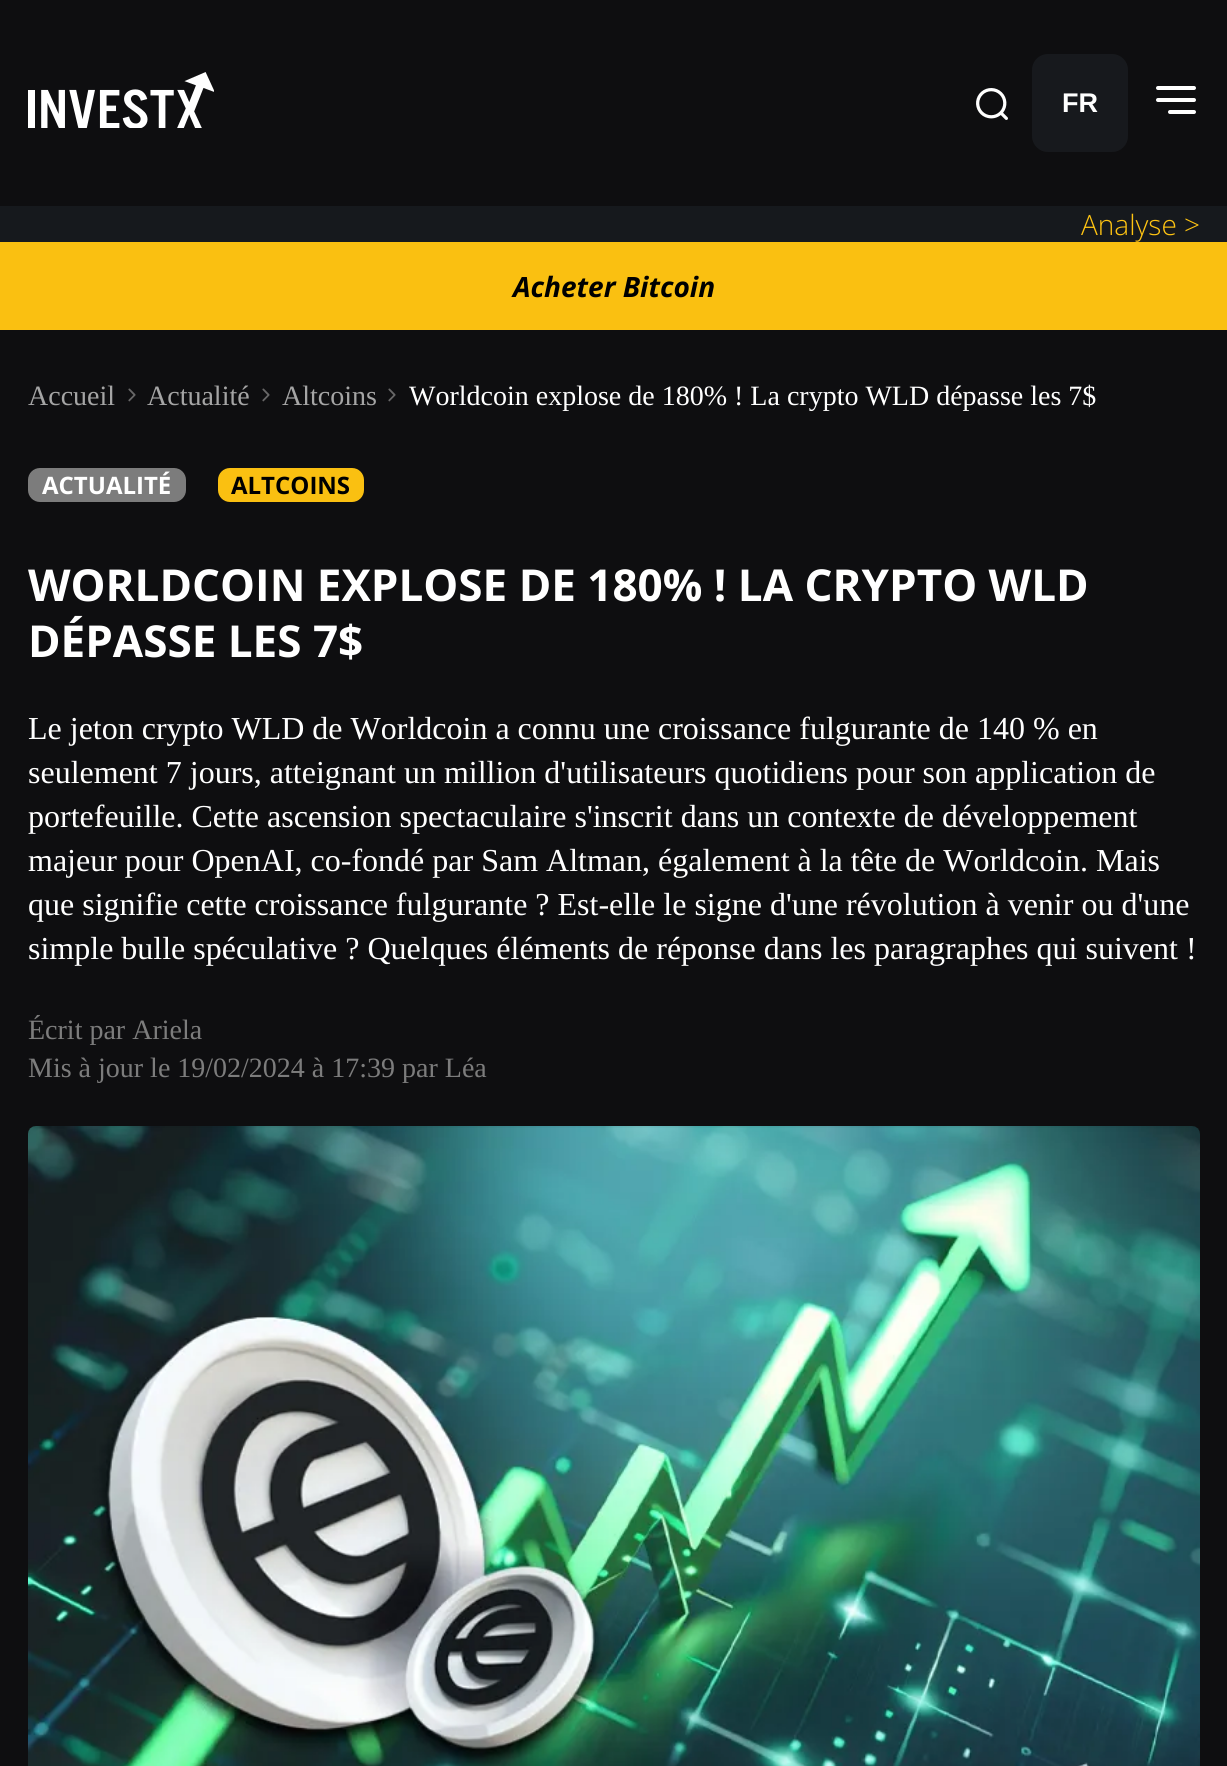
#include <cairo.h>
#include <math.h>
#include <stddef.h>


static void round_rect(cairo_t *cr, double x, double y, double w, double h, double r) {
    cairo_new_sub_path(cr);
    cairo_arc(cr, x + w - r, y + h - r, r, 0, M_PI / 2);
    cairo_arc(cr, x + r, y + h - r, r, M_PI / 2, M_PI);
    cairo_arc(cr, x + r, y + r, r, M_PI, 1.5 * M_PI);
    cairo_arc(cr, x + w - r, y + r, r, 1.5 * M_PI, 2 * M_PI);
    cairo_close_path(cr);
}

static void picture(cairo_t *cr, const char *path, double x, double y, double w, double h) {
    cairo_surface_t *image = cairo_image_surface_create_from_png(path);
    cairo_save(cr);
    cairo_set_source_surface(cr, image, x, y);
    cairo_rectangle(cr, x, y, w, h);
    cairo_fill(cr);
    cairo_restore(cr);
    cairo_surface_destroy(image);
}

int main(void) {
    cairo_surface_t *surface = cairo_image_surface_create(CAIRO_FORMAT_RGB24, 1227, 1766);
    cairo_t *cr = cairo_create(surface);
    cairo_font_options_t *options = cairo_font_options_create();
    cairo_font_options_set_hint_metrics(options, CAIRO_HINT_METRICS_OFF);
    cairo_font_options_set_hint_style(options, CAIRO_HINT_STYLE_NONE);
    cairo_set_font_options(cr, options);
    cairo_set_miter_limit(cr, 4);
    cairo_set_source_rgb(cr, 0.055, 0.055, 0.063);
    cairo_paint(cr);
    picture(cr, "img1.png", 28, 72, 186, 56);
    picture(cr, "img2.png", 976, 88, 32, 32);
    cairo_set_source_rgb(cr, 0.09, 0.098, 0.114);
    round_rect(cr, 1032, 54, 96, 98, 16);
    cairo_fill(cr);
    cairo_select_font_face(cr, "Liberation Sans", CAIRO_FONT_SLANT_NORMAL, CAIRO_FONT_WEIGHT_BOLD);
    cairo_set_font_size(cr, 27);
    cairo_set_source_rgb(cr, 1, 1, 1);
    cairo_move_to(cr, 1062, 112);
    cairo_show_text(cr, "FR");
    cairo_new_path(cr);
    cairo_move_to(cr, 1158, 100);
    cairo_line_to(cr, 1194, 100);
    cairo_move_to(cr, 1158, 88);
    cairo_line_to(cr, 1194, 88);
    cairo_move_to(cr, 1170, 112);
    cairo_line_to(cr, 1194, 112);
    cairo_set_line_width(cr, 4);
    cairo_set_line_cap(cr, CAIRO_LINE_CAP_ROUND);
    cairo_set_line_join(cr, CAIRO_LINE_JOIN_ROUND);
    cairo_stroke(cr);
    cairo_set_source_rgb(cr, 0.086, 0.098, 0.114);
    cairo_rectangle(cr, 0, 206, 1227, 36);
    cairo_fill(cr);
    cairo_select_font_face(cr, "Open Sans Light", CAIRO_FONT_SLANT_NORMAL, CAIRO_FONT_WEIGHT_NORMAL);
    cairo_set_font_size(cr, 28);
    cairo_set_source_rgb(cr, 1, 0.769, 0.071);
    cairo_move_to(cr, 1081, 235);
    cairo_show_text(cr, "Analyse >");
    cairo_set_source_rgb(cr, 0.98, 0.753, 0.067);
    cairo_rectangle(cr, 0, 242, 1227, 88);
    cairo_fill(cr);
    cairo_select_font_face(cr, "Open Sans", CAIRO_FONT_SLANT_ITALIC, CAIRO_FONT_WEIGHT_BOLD);
    cairo_set_source_rgb(cr, 0, 0, 0);
    cairo_move_to(cr, 513, 297);
    cairo_show_text(cr, "Acheter Bitcoin");
    cairo_select_font_face(cr, "Liberation Serif", CAIRO_FONT_SLANT_NORMAL, CAIRO_FONT_WEIGHT_NORMAL);
    cairo_set_source_rgb(cr, 0.647, 0.647, 0.647);
    cairo_move_to(cr, 28, 405);
    cairo_show_text(cr, "Accueil");
    picture(cr, "img3.png", 128, 388, 8, 14);
    cairo_move_to(cr, 147, 405);
    cairo_show_text(cr, "Actualité");
    picture(cr, "img3.png", 262, 388, 8, 14);
    cairo_move_to(cr, 282, 405);
    cairo_show_text(cr, "Altcoins");
    picture(cr, "img3.png", 388, 388, 8, 14);
    cairo_set_source_rgb(cr, 1, 1, 1);
    cairo_move_to(cr, 409, 405);
    cairo_show_text(cr, "Worldcoin explose de 180% ! La crypto WLD dépasse les 7$");
    cairo_set_source_rgb(cr, 0.486, 0.486, 0.486);
    round_rect(cr, 28, 468, 158, 34, 12);
    cairo_fill(cr);
    cairo_select_font_face(cr, "Open Sans", CAIRO_FONT_SLANT_NORMAL, CAIRO_FONT_WEIGHT_BOLD);
    cairo_set_font_size(cr, 24);
    cairo_set_source_rgb(cr, 1, 1, 1);
    cairo_move_to(cr, 42, 494);
    cairo_show_text(cr, "ACTUALITÉ");
    cairo_set_source_rgb(cr, 0.98, 0.753, 0.067);
    round_rect(cr, 218, 468, 146, 34, 12);
    cairo_fill(cr);
    cairo_set_source_rgb(cr, 0, 0, 0);
    cairo_move_to(cr, 231, 494);
    cairo_show_text(cr, "ALTCOINS");
    cairo_set_font_size(cr, 44);
    cairo_set_source_rgb(cr, 1, 1, 1);
    cairo_move_to(cr, 28, 601);
    cairo_show_text(cr, "WORLDCOIN EXPLOSE DE 180% ! LA CRYPTO WLD");
    cairo_move_to(cr, 28, 657);
    cairo_show_text(cr, "DÉPASSE LES 7$");
    cairo_select_font_face(cr, "Liberation Serif", CAIRO_FONT_SLANT_NORMAL, CAIRO_FONT_WEIGHT_NORMAL);
    cairo_set_font_size(cr, 32);
    cairo_move_to(cr, 28, 739);
    cairo_show_text(cr, "Le jeton crypto WLD de Worldcoin a connu une croissance fulgurante de 140 % en");
    cairo_move_to(cr, 28, 783);
    cairo_show_text(cr, "seulement 7 jours, atteignant un million d'utilisateurs quotidiens pour son application de");
    cairo_move_to(cr, 28, 827);
    cairo_show_text(cr, "portefeuille. Cette ascension spectaculaire s'inscrit dans un contexte de développement");
    cairo_move_to(cr, 28, 871);
    cairo_show_text(cr, "majeur pour OpenAI, co-fondé par Sam Altman, également à la tête de Worldcoin. Mais");
    cairo_move_to(cr, 28, 915);
    cairo_show_text(cr, "que signifie cette croissance fulgurante ? Est-elle le signe d'une révolution à venir ou d'une");
    cairo_move_to(cr, 28, 959);
    cairo_show_text(cr, "simple bulle spéculative ? Quelques éléments de réponse dans les paragraphes qui suivent !");
    cairo_set_font_size(cr, 28);
    cairo_set_source_rgb(cr, 0.486, 0.486, 0.486);
    cairo_move_to(cr, 28, 1039);
    cairo_show_text(cr, "Écrit par Ariela");
    cairo_move_to(cr, 28, 1077);
    cairo_show_text(cr, "Mis à jour le 19/02/2024 à 17:39 par Léa");
    picture(cr, "img4.png", 28, 1126, 1172, 640);
    cairo_surface_write_to_png(surface, "page.png");
    cairo_font_options_destroy(options);
    cairo_destroy(cr);
    cairo_surface_destroy(surface);
    return 0;
}
